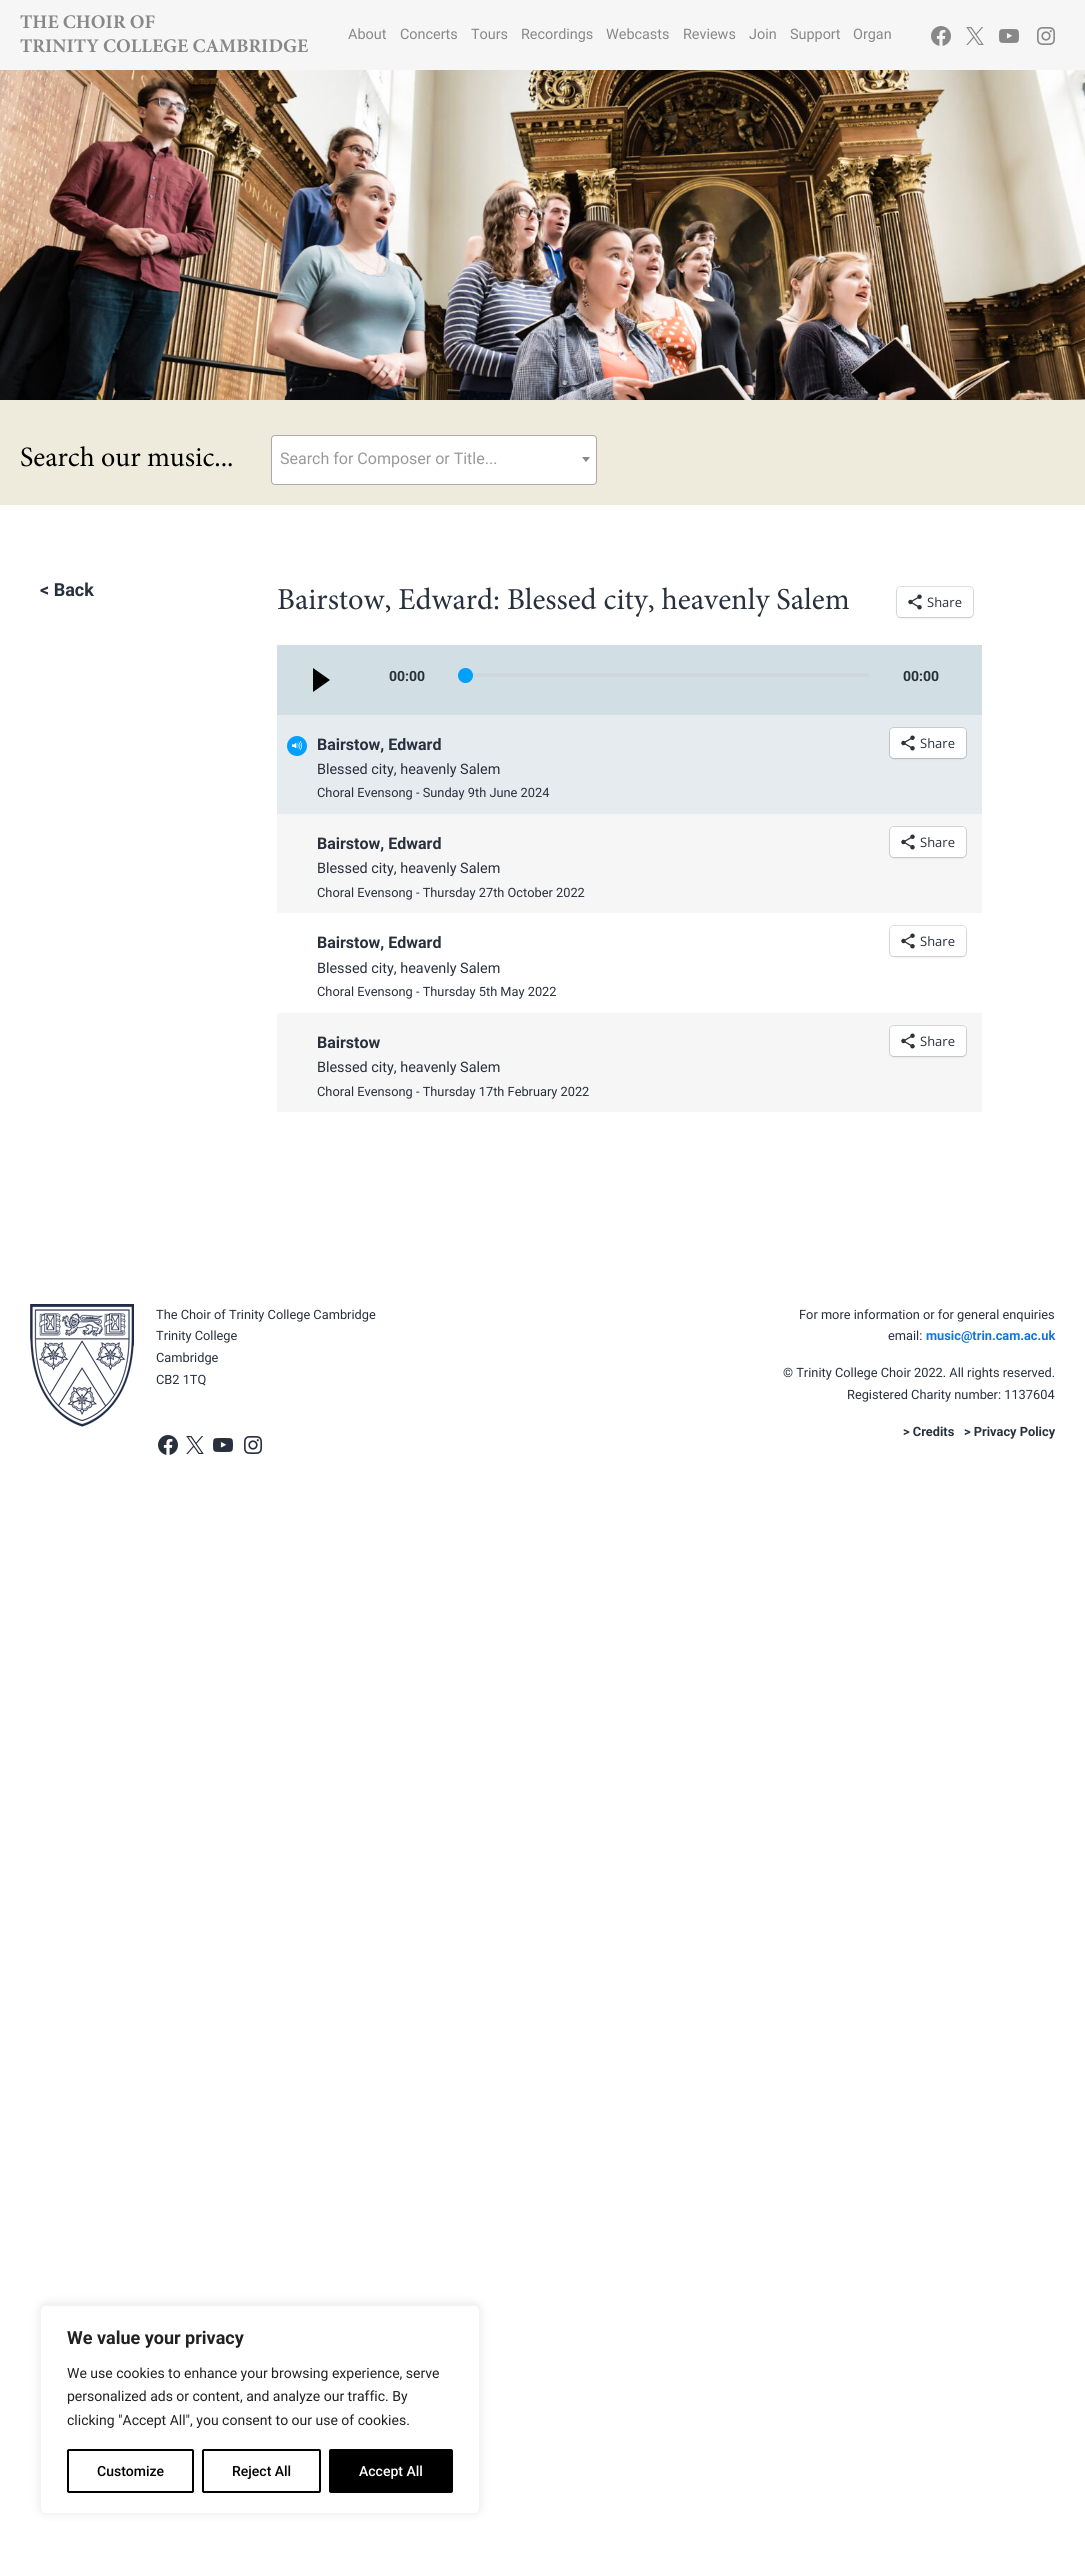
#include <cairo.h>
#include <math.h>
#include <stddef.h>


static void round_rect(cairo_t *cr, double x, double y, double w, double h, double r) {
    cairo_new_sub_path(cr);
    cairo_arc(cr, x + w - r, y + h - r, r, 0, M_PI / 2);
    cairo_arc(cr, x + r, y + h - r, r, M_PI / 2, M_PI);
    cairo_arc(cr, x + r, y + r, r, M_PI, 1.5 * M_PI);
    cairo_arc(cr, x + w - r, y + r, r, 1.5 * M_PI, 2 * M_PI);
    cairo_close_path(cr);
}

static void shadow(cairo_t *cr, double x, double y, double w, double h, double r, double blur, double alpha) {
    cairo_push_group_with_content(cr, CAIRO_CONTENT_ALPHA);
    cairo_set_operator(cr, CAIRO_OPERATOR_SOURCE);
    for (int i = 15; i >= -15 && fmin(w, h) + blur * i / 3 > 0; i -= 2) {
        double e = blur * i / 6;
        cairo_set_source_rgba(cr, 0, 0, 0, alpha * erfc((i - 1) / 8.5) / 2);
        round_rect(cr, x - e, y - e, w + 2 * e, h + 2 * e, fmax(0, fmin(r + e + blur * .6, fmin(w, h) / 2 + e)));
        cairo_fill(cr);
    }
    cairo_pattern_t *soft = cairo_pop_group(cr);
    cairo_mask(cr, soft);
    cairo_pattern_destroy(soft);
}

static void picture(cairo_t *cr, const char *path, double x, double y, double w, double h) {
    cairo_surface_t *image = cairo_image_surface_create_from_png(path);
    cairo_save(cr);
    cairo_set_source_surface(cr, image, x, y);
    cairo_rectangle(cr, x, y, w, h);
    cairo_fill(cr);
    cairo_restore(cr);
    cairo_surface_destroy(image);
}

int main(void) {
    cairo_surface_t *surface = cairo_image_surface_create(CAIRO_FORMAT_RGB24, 1085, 2554);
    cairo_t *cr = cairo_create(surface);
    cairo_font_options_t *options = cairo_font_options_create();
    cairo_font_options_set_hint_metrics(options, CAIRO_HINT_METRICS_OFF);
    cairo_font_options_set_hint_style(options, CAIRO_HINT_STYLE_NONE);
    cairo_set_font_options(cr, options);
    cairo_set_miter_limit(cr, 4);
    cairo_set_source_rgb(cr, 1, 1, 1);
    cairo_paint(cr);
    cairo_set_source_rgb(cr, 0.961, 0.961, 0.961);
    cairo_rectangle(cr, 0, 0, 1085, 70);
    cairo_fill(cr);
    cairo_select_font_face(cr, "Minion", CAIRO_FONT_SLANT_NORMAL, CAIRO_FONT_WEIGHT_BOLD);
    cairo_set_font_size(cr, 19.25);
    cairo_set_source_rgb(cr, 0.533, 0.533, 0.533);
    cairo_move_to(cr, 20, 28);
    cairo_show_text(cr, "THE CHOIR OF");
    cairo_move_to(cr, 20, 52);
    cairo_show_text(cr, "TRINITY COLLEGE CAMBRIDGE");
    cairo_select_font_face(cr, "Roboto", CAIRO_FONT_SLANT_NORMAL, CAIRO_FONT_WEIGHT_NORMAL);
    cairo_set_font_size(cr, 14.4);
    cairo_move_to(cr, 348, 39);
    cairo_show_text(cr, "About");
    cairo_move_to(cr, 400, 39);
    cairo_show_text(cr, "Concerts");
    cairo_move_to(cr, 471, 39);
    cairo_show_text(cr, "Tours");
    cairo_move_to(cr, 521, 39);
    cairo_show_text(cr, "Recordings");
    cairo_move_to(cr, 606, 39);
    cairo_show_text(cr, "Webcasts");
    cairo_move_to(cr, 683, 39);
    cairo_show_text(cr, "Reviews");
    cairo_move_to(cr, 749, 39);
    cairo_show_text(cr, "Join");
    cairo_move_to(cr, 790, 39);
    cairo_show_text(cr, "Support");
    cairo_move_to(cr, 853, 39);
    cairo_show_text(cr, "Organ");
    picture(cr, "img1.png", 931, 26, 20, 20);
    picture(cr, "img2.png", 966, 27, 18, 18);
    picture(cr, "img3.png", 999, 29, 20, 14);
    picture(cr, "img4.png", 1037, 27, 18, 18);
    picture(cr, "img5.png", 0, 70, 1085, 330);
    cairo_set_source_rgb(cr, 0.933, 0.918, 0.867);
    cairo_rectangle(cr, 0, 400, 1085, 105);
    cairo_fill(cr);
    cairo_select_font_face(cr, "Minion", CAIRO_FONT_SLANT_NORMAL, CAIRO_FONT_WEIGHT_NORMAL);
    cairo_set_font_size(cr, 28);
    cairo_set_source_rgb(cr, 0, 0, 0);
    cairo_move_to(cr, 20, 466);
    cairo_show_text(cr, "Search our music...");
    cairo_set_source_rgb(cr, 1, 1, 1);
    round_rect(cr, 271.5, 435.5, 325, 49, 3.5);
    cairo_fill_preserve(cr);
    cairo_set_source_rgb(cr, 0.667, 0.667, 0.667);
    cairo_set_line_width(cr, 1);
    cairo_stroke(cr);
    cairo_select_font_face(cr, "Roboto", CAIRO_FONT_SLANT_NORMAL, CAIRO_FONT_WEIGHT_NORMAL);
    cairo_set_font_size(cr, 16);
    cairo_set_source_rgb(cr, 0.6, 0.6, 0.6);
    cairo_move_to(cr, 280, 464);
    cairo_show_text(cr, "Search for Composer or Title...");
    cairo_set_source_rgb(cr, 0.533, 0.533, 0.533);
    cairo_new_path(cr);
    cairo_move_to(cr, 582, 457);
    cairo_line_to(cr, 590, 457);
    cairo_line_to(cr, 586, 462);
    cairo_close_path(cr);
    cairo_fill(cr);
    cairo_select_font_face(cr, "Roboto", CAIRO_FONT_SLANT_NORMAL, CAIRO_FONT_WEIGHT_BOLD);
    cairo_set_font_size(cr, 18);
    cairo_set_source_rgb(cr, 0.157, 0.188, 0.239);
    cairo_move_to(cr, 40, 596);
    cairo_show_text(cr, "< Back");
    cairo_select_font_face(cr, "Minion", CAIRO_FONT_SLANT_NORMAL, CAIRO_FONT_WEIGHT_NORMAL);
    cairo_set_font_size(cr, 30.4);
    cairo_move_to(cr, 277, 609);
    cairo_show_text(cr, "Bairstow, Edward: Blessed city, heavenly Salem");
    round_rect(cr, 896.5, 586.5, 77, 31, 4.5);
    cairo_set_source_rgb(cr, 0.878, 0.878, 0.878);
    cairo_stroke(cr);
    cairo_set_source_rgb(cr, 0, 0, 0);
    shadow(cr, 897, 588, 76, 30, 4, 1, 0.12);
    cairo_set_source_rgb(cr, 1, 1, 1);
    round_rect(cr, 897, 587, 76, 30, 4);
    cairo_fill(cr);
    picture(cr, "img6.png", 908, 594, 14, 16);
    cairo_select_font_face(cr, "Open Sans", CAIRO_FONT_SLANT_NORMAL, CAIRO_FONT_WEIGHT_NORMAL);
    cairo_set_font_size(cr, 13);
    cairo_set_source_rgb(cr, 0.157, 0.188, 0.239);
    cairo_move_to(cr, 927, 607);
    cairo_show_text(cr, "Share");
    cairo_set_source_rgb(cr, 0.82, 0.875, 0.894);
    cairo_rectangle(cr, 277, 645, 705, 70);
    cairo_fill(cr);
    cairo_set_source_rgb(cr, 0, 0, 0);
    cairo_new_path(cr);
    cairo_move_to(cr, 330, 680);
    cairo_line_to(cr, 313, 668);
    cairo_line_to(cr, 313, 692);
    cairo_close_path(cr);
    cairo_fill(cr);
    cairo_select_font_face(cr, "Roboto", CAIRO_FONT_SLANT_NORMAL, CAIRO_FONT_WEIGHT_BOLD);
    cairo_set_font_size(cr, 14);
    cairo_set_source_rgb(cr, 0.157, 0.188, 0.239);
    cairo_move_to(cr, 389, 681);
    cairo_show_text(cr, "00:00");
    cairo_set_source_rgb(cr, 0.812, 0.847, 0.863);
    round_rect(cr, 458, 673, 411, 4, 2);
    cairo_fill(cr);
    cairo_set_source_rgb(cr, 0, 0.627, 1);
    cairo_arc(cr, 465.5, 675.5, 7, 0, 2 * M_PI);
    cairo_fill_preserve(cr);
    cairo_stroke(cr);
    cairo_set_source_rgb(cr, 0.157, 0.188, 0.239);
    cairo_move_to(cr, 903, 681);
    cairo_show_text(cr, "00:00");
    cairo_set_source_rgb(cr, 0.902, 0.918, 0.937);
    cairo_rectangle(cr, 277, 715, 705, 99);
    cairo_fill(cr);
    picture(cr, "img7.png", 287, 736, 20, 20);
    cairo_set_font_size(cr, 16);
    cairo_set_source_rgb(cr, 0.157, 0.188, 0.239);
    cairo_move_to(cr, 317, 750);
    cairo_show_text(cr, "Bairstow, Edward");
    cairo_select_font_face(cr, "Roboto", CAIRO_FONT_SLANT_NORMAL, CAIRO_FONT_WEIGHT_NORMAL);
    cairo_set_font_size(cr, 14.4);
    cairo_move_to(cr, 317, 774);
    cairo_show_text(cr, "Blessed city, heavenly Salem");
    cairo_set_font_size(cr, 12.8);
    cairo_move_to(cr, 317, 797);
    cairo_show_text(cr, "Choral Evensong - Sunday 9th June 2024");
    round_rect(cr, 889.5, 727.5, 77, 31, 4.5);
    cairo_set_source_rgb(cr, 0.792, 0.808, 0.824);
    cairo_stroke(cr);
    cairo_set_source_rgb(cr, 0, 0, 0);
    shadow(cr, 890, 729, 76, 30, 4, 1, 0.12);
    cairo_set_source_rgb(cr, 1, 1, 1);
    round_rect(cr, 890, 728, 76, 30, 4);
    cairo_fill(cr);
    picture(cr, "img6.png", 901, 735, 14, 16);
    cairo_select_font_face(cr, "Open Sans", CAIRO_FONT_SLANT_NORMAL, CAIRO_FONT_WEIGHT_NORMAL);
    cairo_set_font_size(cr, 13);
    cairo_set_source_rgb(cr, 0.157, 0.188, 0.239);
    cairo_move_to(cr, 920, 748);
    cairo_show_text(cr, "Share");
    cairo_set_source_rgb(cr, 0.961, 0.961, 0.961);
    cairo_rectangle(cr, 277, 814, 705, 99);
    cairo_fill(cr);
    cairo_select_font_face(cr, "Roboto", CAIRO_FONT_SLANT_NORMAL, CAIRO_FONT_WEIGHT_BOLD);
    cairo_set_font_size(cr, 16);
    cairo_set_source_rgb(cr, 0.157, 0.188, 0.239);
    cairo_move_to(cr, 317, 849);
    cairo_show_text(cr, "Bairstow, Edward");
    cairo_select_font_face(cr, "Roboto", CAIRO_FONT_SLANT_NORMAL, CAIRO_FONT_WEIGHT_NORMAL);
    cairo_set_font_size(cr, 14.4);
    cairo_move_to(cr, 317, 873);
    cairo_show_text(cr, "Blessed city, heavenly Salem");
    cairo_set_font_size(cr, 12.8);
    cairo_move_to(cr, 317, 897);
    cairo_show_text(cr, "Choral Evensong - Thursday 27th October 2022");
    round_rect(cr, 889.5, 826.5, 77, 31, 4.5);
    cairo_set_source_rgb(cr, 0.847, 0.847, 0.847);
    cairo_stroke(cr);
    cairo_set_source_rgb(cr, 0, 0, 0);
    shadow(cr, 890, 828, 76, 30, 4, 1, 0.12);
    cairo_set_source_rgb(cr, 1, 1, 1);
    round_rect(cr, 890, 827, 76, 30, 4);
    cairo_fill(cr);
    picture(cr, "img6.png", 901, 834, 14, 16);
    cairo_select_font_face(cr, "Open Sans", CAIRO_FONT_SLANT_NORMAL, CAIRO_FONT_WEIGHT_NORMAL);
    cairo_set_font_size(cr, 13);
    cairo_set_source_rgb(cr, 0.157, 0.188, 0.239);
    cairo_move_to(cr, 920, 847);
    cairo_show_text(cr, "Share");
    cairo_select_font_face(cr, "Roboto", CAIRO_FONT_SLANT_NORMAL, CAIRO_FONT_WEIGHT_BOLD);
    cairo_set_font_size(cr, 16);
    cairo_move_to(cr, 317, 948);
    cairo_show_text(cr, "Bairstow, Edward");
    cairo_select_font_face(cr, "Roboto", CAIRO_FONT_SLANT_NORMAL, CAIRO_FONT_WEIGHT_NORMAL);
    cairo_set_font_size(cr, 14.4);
    cairo_move_to(cr, 317, 973);
    cairo_show_text(cr, "Blessed city, heavenly Salem");
    cairo_set_font_size(cr, 12.8);
    cairo_move_to(cr, 317, 996);
    cairo_show_text(cr, "Choral Evensong - Thursday 5th May 2022");
    round_rect(cr, 889.5, 925.5, 77, 31, 4.5);
    cairo_set_source_rgb(cr, 0.878, 0.878, 0.878);
    cairo_stroke(cr);
    cairo_set_source_rgb(cr, 0, 0, 0);
    shadow(cr, 890, 927, 76, 30, 4, 1, 0.12);
    cairo_set_source_rgb(cr, 1, 1, 1);
    round_rect(cr, 890, 926, 76, 30, 4);
    cairo_fill(cr);
    picture(cr, "img6.png", 901, 933, 14, 16);
    cairo_select_font_face(cr, "Open Sans", CAIRO_FONT_SLANT_NORMAL, CAIRO_FONT_WEIGHT_NORMAL);
    cairo_set_font_size(cr, 13);
    cairo_set_source_rgb(cr, 0.157, 0.188, 0.239);
    cairo_move_to(cr, 920, 946);
    cairo_show_text(cr, "Share");
    cairo_set_source_rgb(cr, 0.961, 0.961, 0.961);
    cairo_rectangle(cr, 277, 1013, 705, 99);
    cairo_fill(cr);
    cairo_select_font_face(cr, "Roboto", CAIRO_FONT_SLANT_NORMAL, CAIRO_FONT_WEIGHT_BOLD);
    cairo_set_font_size(cr, 16);
    cairo_set_source_rgb(cr, 0.157, 0.188, 0.239);
    cairo_move_to(cr, 317, 1048);
    cairo_show_text(cr, "Bairstow");
    cairo_select_font_face(cr, "Roboto", CAIRO_FONT_SLANT_NORMAL, CAIRO_FONT_WEIGHT_NORMAL);
    cairo_set_font_size(cr, 14.4);
    cairo_move_to(cr, 317, 1072);
    cairo_show_text(cr, "Blessed city, heavenly Salem");
    cairo_set_font_size(cr, 12.8);
    cairo_move_to(cr, 317, 1096);
    cairo_show_text(cr, "Choral Evensong - Thursday 17th February 2022");
    round_rect(cr, 889.5, 1025.5, 77, 31, 4.5);
    cairo_set_source_rgb(cr, 0.847, 0.847, 0.847);
    cairo_stroke(cr);
    cairo_set_source_rgb(cr, 0, 0, 0);
    shadow(cr, 890, 1027, 76, 30, 4, 1, 0.12);
    cairo_set_source_rgb(cr, 1, 1, 1);
    round_rect(cr, 890, 1026, 76, 30, 4);
    cairo_fill(cr);
    picture(cr, "img6.png", 901, 1033, 14, 16);
    cairo_select_font_face(cr, "Open Sans", CAIRO_FONT_SLANT_NORMAL, CAIRO_FONT_WEIGHT_NORMAL);
    cairo_set_font_size(cr, 13);
    cairo_set_source_rgb(cr, 0.157, 0.188, 0.239);
    cairo_move_to(cr, 920, 1046);
    cairo_show_text(cr, "Share");
    picture(cr, "img8.png", 30, 1304, 104, 123);
    cairo_select_font_face(cr, "Roboto", CAIRO_FONT_SLANT_NORMAL, CAIRO_FONT_WEIGHT_NORMAL);
    cairo_set_font_size(cr, 12.8);
    cairo_move_to(cr, 156, 1319);
    cairo_show_text(cr, "The Choir of Trinity College Cambridge");
    cairo_move_to(cr, 156, 1340);
    cairo_show_text(cr, "Trinity College");
    cairo_move_to(cr, 156, 1362);
    cairo_show_text(cr, "Cambridge");
    cairo_move_to(cr, 156, 1384);
    cairo_show_text(cr, "CB2 1TQ");
    picture(cr, "img9.png", 158, 1435, 20, 20);
    picture(cr, "img10.png", 186, 1436, 18, 18);
    picture(cr, "img11.png", 213, 1438, 20, 14);
    picture(cr, "img12.png", 244, 1436, 18, 18);
    cairo_move_to(cr, 799, 1319);
    cairo_show_text(cr, "For more information or for general enquiries");
    cairo_move_to(cr, 888, 1340);
    cairo_show_text(cr, "email:");
    cairo_select_font_face(cr, "Roboto", CAIRO_FONT_SLANT_NORMAL, CAIRO_FONT_WEIGHT_BOLD);
    cairo_set_source_rgb(cr, 0.082, 0.451, 0.867);
    cairo_move_to(cr, 926, 1340);
    cairo_show_text(cr, "music@trin.cam.ac.uk");
    cairo_select_font_face(cr, "Roboto", CAIRO_FONT_SLANT_NORMAL, CAIRO_FONT_WEIGHT_NORMAL);
    cairo_set_source_rgb(cr, 0.157, 0.188, 0.239);
    cairo_move_to(cr, 783, 1377);
    cairo_show_text(cr, "© Trinity College Choir 2022. All rights reserved.");
    cairo_move_to(cr, 847, 1399);
    cairo_show_text(cr, "Registered Charity number: 1137604");
    cairo_select_font_face(cr, "Roboto", CAIRO_FONT_SLANT_NORMAL, CAIRO_FONT_WEIGHT_BOLD);
    cairo_move_to(cr, 903, 1436);
    cairo_show_text(cr, "> Credits");
    cairo_move_to(cr, 964, 1436);
    cairo_show_text(cr, "> Privacy Policy");
    cairo_set_source_rgb(cr, 0.675, 0.671, 0.671);
    shadow(cr, 40, 2304, 440, 209, 6, 5, 0.3);
    cairo_set_source_rgb(cr, 1, 1, 1);
    round_rect(cr, 40.5, 2305.5, 439, 208, 5.5);
    cairo_fill_preserve(cr);
    cairo_set_source_rgb(cr, 0.957, 0.957, 0.957);
    cairo_stroke(cr);
    cairo_set_font_size(cr, 18);
    cairo_set_source_rgb(cr, 0.129, 0.129, 0.129);
    cairo_move_to(cr, 67, 2344);
    cairo_show_text(cr, "We value your privacy");
    cairo_select_font_face(cr, "Roboto", CAIRO_FONT_SLANT_NORMAL, CAIRO_FONT_WEIGHT_NORMAL);
    cairo_set_font_size(cr, 14);
    cairo_move_to(cr, 67, 2378);
    cairo_show_text(cr, "We use cookies to enhance your browsing experience, serve");
    cairo_move_to(cr, 67, 2401);
    cairo_show_text(cr, "personalized ads or content, and analyze our traffic. By");
    cairo_move_to(cr, 67, 2425);
    cairo_show_text(cr, "clicking \"Accept All\", you consent to our use of cookies.");
    round_rect(cr, 68, 2450, 125, 42, 1);
    cairo_set_source_rgb(cr, 0, 0, 0);
    cairo_set_line_width(cr, 2);
    cairo_stroke(cr);
    cairo_select_font_face(cr, "Roboto Medium", CAIRO_FONT_SLANT_NORMAL, CAIRO_FONT_WEIGHT_NORMAL);
    cairo_move_to(cr, 97, 2476);
    cairo_show_text(cr, "Customize");
    round_rect(cr, 203, 2450, 117, 42, 1);
    cairo_stroke(cr);
    cairo_move_to(cr, 232, 2476);
    cairo_show_text(cr, "Reject All");
    round_rect(cr, 330, 2450, 122, 42, 1);
    cairo_fill_preserve(cr);
    cairo_stroke(cr);
    cairo_set_source_rgb(cr, 1, 1, 1);
    cairo_move_to(cr, 359, 2476);
    cairo_show_text(cr, "Accept All");
    cairo_surface_write_to_png(surface, "page.png");
    cairo_font_options_destroy(options);
    cairo_destroy(cr);
    cairo_surface_destroy(surface);
    return 0;
}
